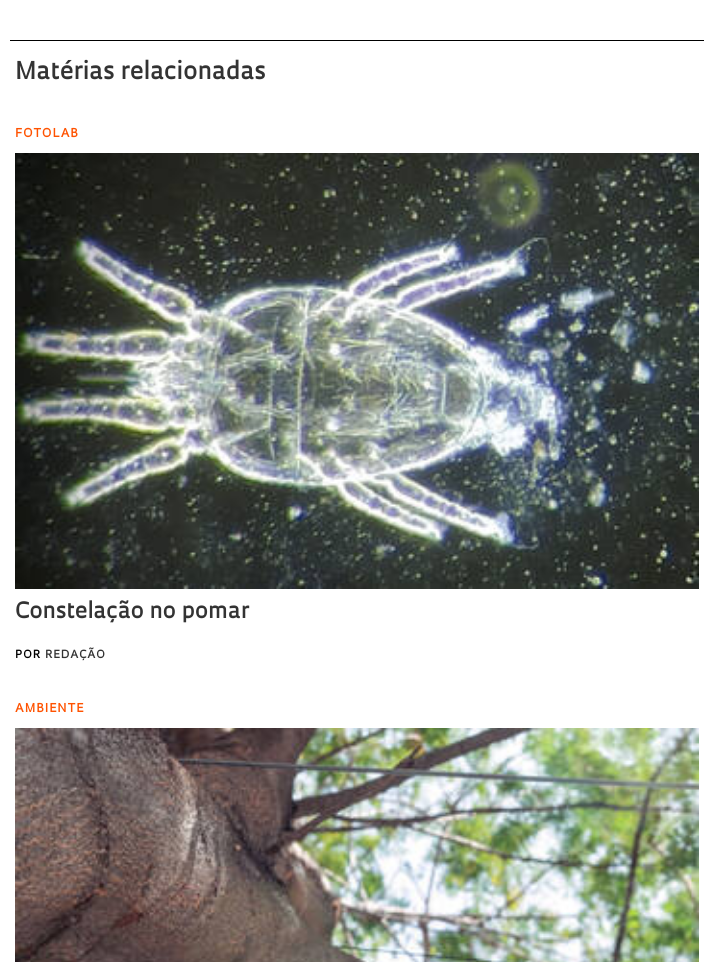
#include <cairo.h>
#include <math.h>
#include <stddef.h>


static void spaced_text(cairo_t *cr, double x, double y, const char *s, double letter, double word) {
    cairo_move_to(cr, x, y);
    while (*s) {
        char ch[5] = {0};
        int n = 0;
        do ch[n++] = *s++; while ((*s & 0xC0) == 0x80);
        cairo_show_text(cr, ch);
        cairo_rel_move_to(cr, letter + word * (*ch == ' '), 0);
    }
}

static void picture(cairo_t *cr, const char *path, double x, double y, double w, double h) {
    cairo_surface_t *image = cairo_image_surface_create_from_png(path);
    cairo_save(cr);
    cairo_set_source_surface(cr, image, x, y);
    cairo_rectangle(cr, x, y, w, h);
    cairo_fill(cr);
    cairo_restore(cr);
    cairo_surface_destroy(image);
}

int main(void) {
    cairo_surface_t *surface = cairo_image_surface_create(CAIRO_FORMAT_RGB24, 714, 962);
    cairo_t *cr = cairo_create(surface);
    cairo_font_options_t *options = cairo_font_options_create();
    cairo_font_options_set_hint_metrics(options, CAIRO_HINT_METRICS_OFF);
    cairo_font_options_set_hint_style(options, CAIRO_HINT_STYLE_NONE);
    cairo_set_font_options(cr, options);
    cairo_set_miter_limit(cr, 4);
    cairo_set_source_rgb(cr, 1, 1, 1);
    cairo_paint(cr);
    cairo_set_source_rgb(cr, 0, 0, 0);
    cairo_rectangle(cr, 10, 40, 694, 1);
    cairo_fill(cr);
    cairo_select_font_face(cr, "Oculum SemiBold", CAIRO_FONT_SLANT_NORMAL, CAIRO_FONT_WEIGHT_NORMAL);
    cairo_set_font_size(cr, 24);
    cairo_set_source_rgb(cr, 0.2, 0.2, 0.2);
    cairo_move_to(cr, 15, 79);
    cairo_show_text(cr, "Matérias relacionadas");
    cairo_set_font_size(cr, 12);
    cairo_set_source_rgb(cr, 1, 0.322, 0);
    spaced_text(cr, 15, 137, "FOTOLAB", 1, 0);
    picture(cr, "img1.png", 15, 153, 684, 436);
    cairo_set_font_size(cr, 22);
    cairo_set_source_rgb(cr, 0.2, 0.2, 0.2);
    cairo_move_to(cr, 15, 618);
    cairo_show_text(cr, "Constelação no pomar");
    cairo_set_font_size(cr, 11);
    cairo_set_source_rgb(cr, 0, 0, 0);
    spaced_text(cr, 15, 658, "POR", 1, 0);
    cairo_set_source_rgb(cr, 0.2, 0.2, 0.2);
    spaced_text(cr, 45, 658, "REDAÇÃO", 1, 0);
    cairo_set_font_size(cr, 12);
    cairo_set_source_rgb(cr, 1, 0.322, 0);
    spaced_text(cr, 15, 712, "AMBIENTE", 1, 0);
    picture(cr, "img2.png", 15, 728, 684, 234);
    cairo_surface_write_to_png(surface, "page.png");
    cairo_font_options_destroy(options);
    cairo_destroy(cr);
    cairo_surface_destroy(surface);
    return 0;
}
